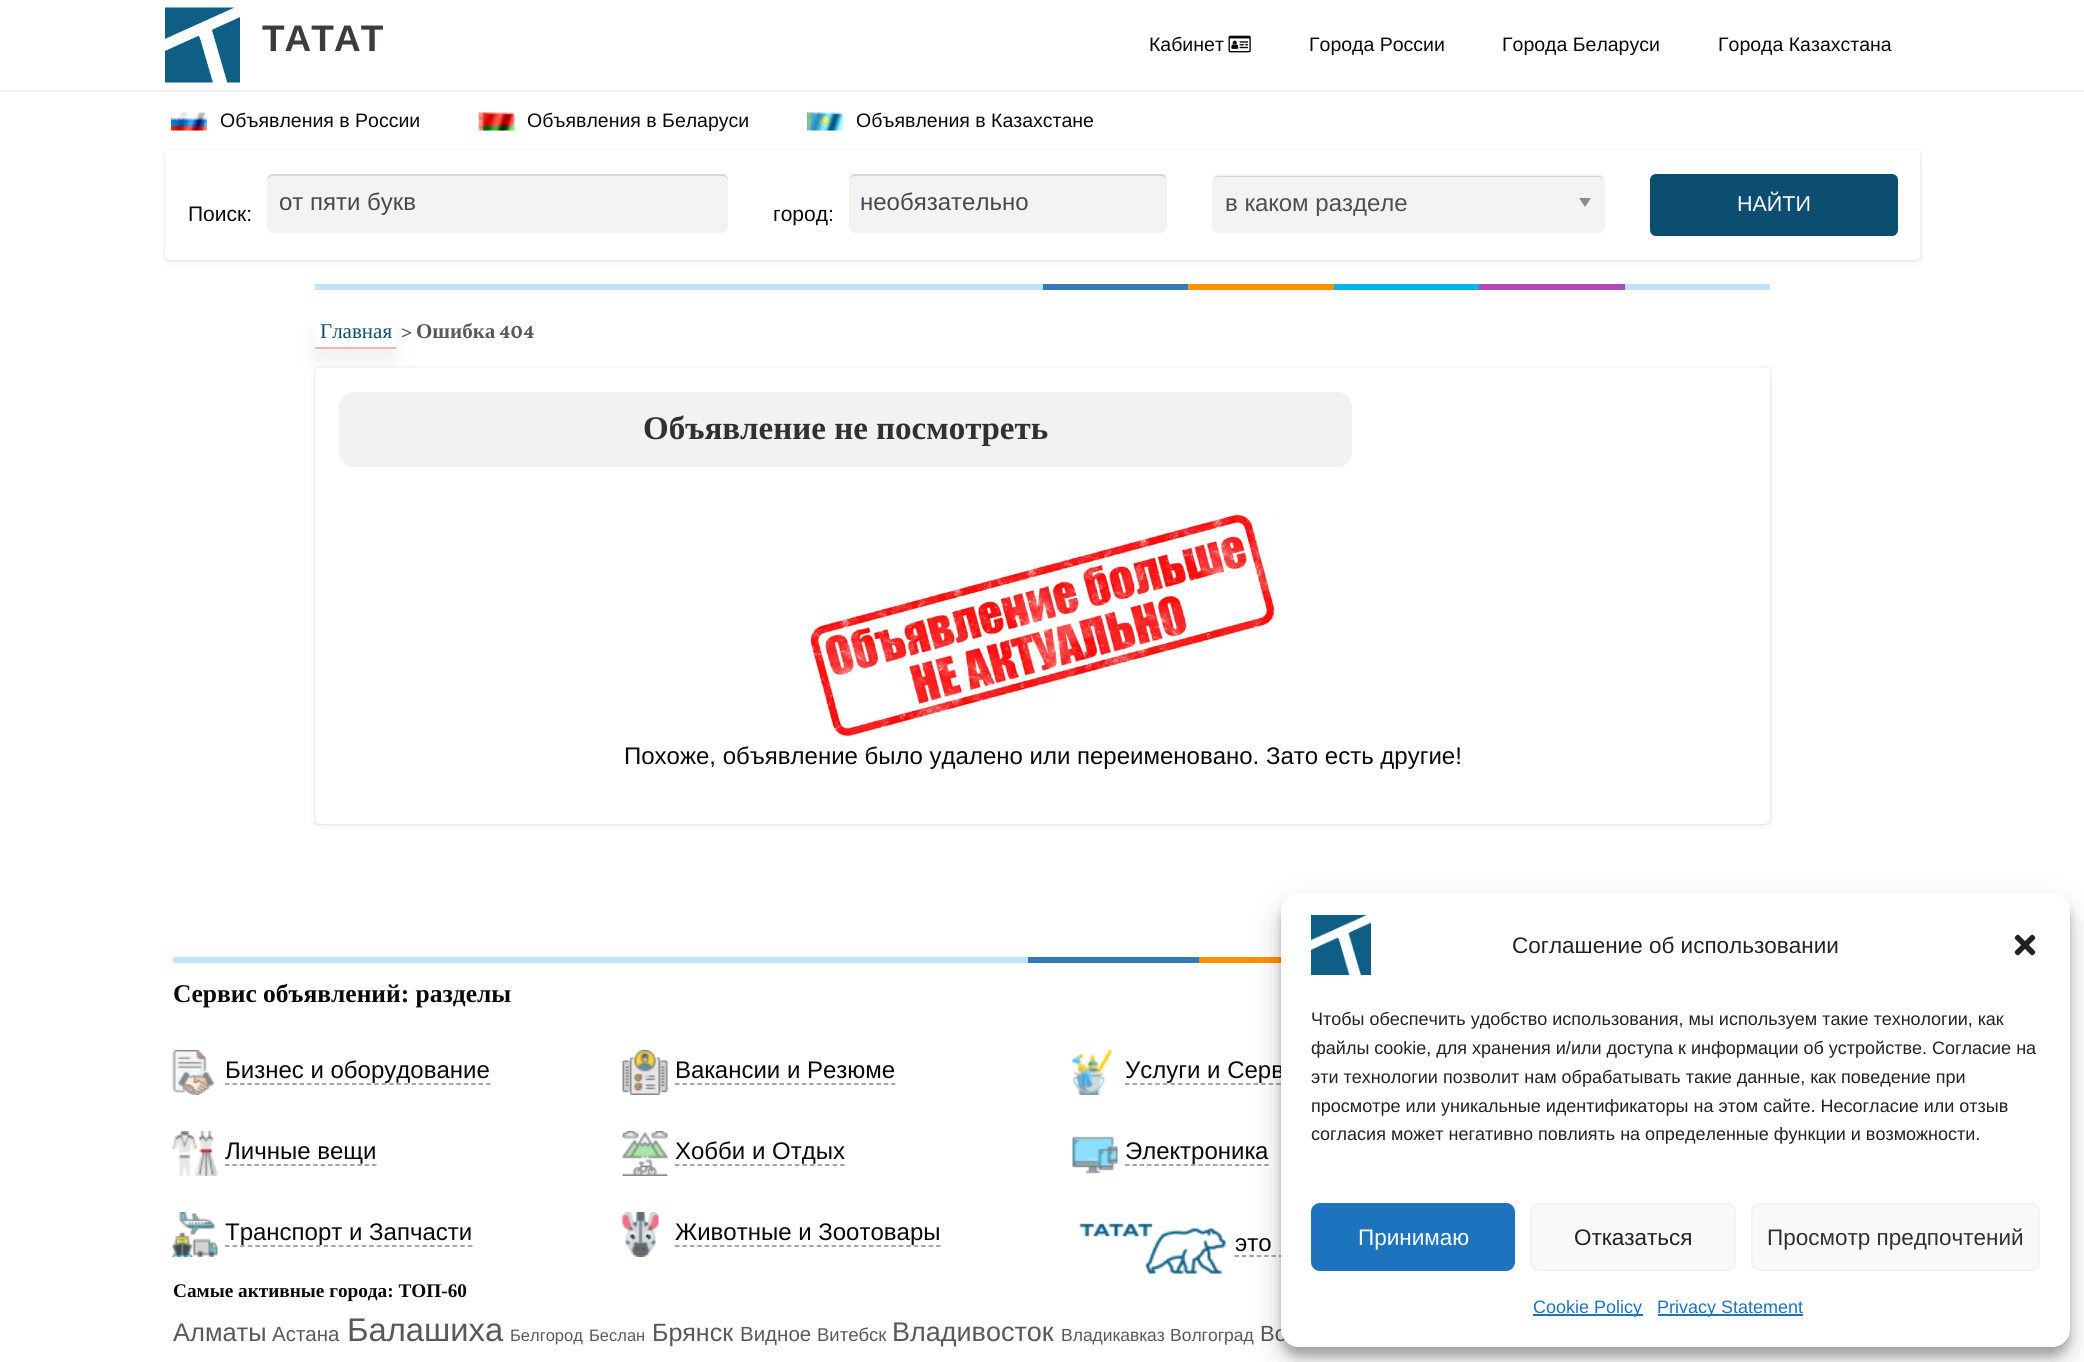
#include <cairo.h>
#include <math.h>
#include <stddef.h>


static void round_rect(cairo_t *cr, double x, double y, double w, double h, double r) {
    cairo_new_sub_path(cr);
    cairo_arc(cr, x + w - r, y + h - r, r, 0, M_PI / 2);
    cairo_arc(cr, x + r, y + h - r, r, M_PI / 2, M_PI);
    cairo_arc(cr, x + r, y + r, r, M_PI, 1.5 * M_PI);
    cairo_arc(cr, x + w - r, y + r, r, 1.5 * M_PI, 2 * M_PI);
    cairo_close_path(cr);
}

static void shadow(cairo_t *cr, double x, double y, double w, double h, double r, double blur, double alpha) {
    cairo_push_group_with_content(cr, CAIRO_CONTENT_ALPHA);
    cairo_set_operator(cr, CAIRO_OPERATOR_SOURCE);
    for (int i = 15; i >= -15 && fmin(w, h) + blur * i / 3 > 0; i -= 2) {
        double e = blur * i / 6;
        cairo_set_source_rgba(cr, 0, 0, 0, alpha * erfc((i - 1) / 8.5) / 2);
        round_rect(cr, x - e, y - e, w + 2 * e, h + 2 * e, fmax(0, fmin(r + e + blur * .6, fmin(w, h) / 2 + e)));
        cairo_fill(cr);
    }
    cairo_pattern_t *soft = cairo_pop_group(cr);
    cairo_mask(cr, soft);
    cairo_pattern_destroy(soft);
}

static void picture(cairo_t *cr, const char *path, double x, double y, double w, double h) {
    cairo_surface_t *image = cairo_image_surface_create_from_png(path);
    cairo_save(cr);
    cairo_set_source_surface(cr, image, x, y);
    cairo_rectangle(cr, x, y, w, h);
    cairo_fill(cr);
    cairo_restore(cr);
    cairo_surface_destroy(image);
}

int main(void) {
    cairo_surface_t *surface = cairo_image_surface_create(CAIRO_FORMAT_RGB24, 2084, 1362);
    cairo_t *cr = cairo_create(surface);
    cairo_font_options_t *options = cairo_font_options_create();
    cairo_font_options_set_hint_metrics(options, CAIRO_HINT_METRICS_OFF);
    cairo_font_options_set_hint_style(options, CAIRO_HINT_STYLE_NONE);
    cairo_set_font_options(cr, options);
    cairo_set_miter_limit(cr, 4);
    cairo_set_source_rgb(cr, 1, 1, 1);
    cairo_paint(cr);
    cairo_set_source_rgb(cr, 0.949, 0.949, 0.949);
    cairo_rectangle(cr, 0, 90, 2084, 2);
    cairo_fill(cr);
    picture(cr, "img1.png", 165, 7, 75, 76);
    cairo_select_font_face(cr, "Liberation Sans", CAIRO_FONT_SLANT_NORMAL, CAIRO_FONT_WEIGHT_BOLD);
    cairo_set_font_size(cr, 37);
    cairo_set_source_rgb(cr, 0.239, 0.231, 0.231);
    cairo_move_to(cr, 262, 51);
    cairo_show_text(cr, "ТАТАТ");
    cairo_select_font_face(cr, "Liberation Sans", CAIRO_FONT_SLANT_NORMAL, CAIRO_FONT_WEIGHT_NORMAL);
    cairo_set_font_size(cr, 19.5);
    cairo_set_source_rgb(cr, 0.039, 0.039, 0.039);
    cairo_move_to(cr, 1149, 51);
    cairo_show_text(cr, "Кабинет");
    picture(cr, "img2.png", 1228, 35, 23, 18);
    cairo_move_to(cr, 1309, 51);
    cairo_show_text(cr, "Города России");
    cairo_move_to(cr, 1502, 51);
    cairo_show_text(cr, "Города Беларуси");
    cairo_move_to(cr, 1718, 51);
    cairo_show_text(cr, "Города Казахстана");
    picture(cr, "img3.png", 171, 112, 36, 19);
    cairo_move_to(cr, 220, 127);
    cairo_show_text(cr, "Объявления в России");
    picture(cr, "img4.png", 478, 112, 37, 19);
    cairo_move_to(cr, 527, 127);
    cairo_show_text(cr, "Объявления в Беларуси");
    picture(cr, "img5.png", 807, 112, 36, 19);
    cairo_move_to(cr, 856, 127);
    cairo_show_text(cr, "Объявления в Казахстане");
    cairo_set_source_rgb(cr, 0, 0, 0);
    shadow(cr, 165, 153, 1755, 110, 6, 4, 0.05);
    shadow(cr, 165, 152, 1755, 109, 6, 1, 0.05);
    cairo_rectangle(cr, 165, 150, 1756, 110);
    cairo_set_source_rgba(cr, 0, 0, 0, 0.03);
    cairo_stroke(cr);
    cairo_set_source_rgb(cr, 1, 1, 1);
    cairo_new_path(cr);
    cairo_move_to(cr, 165, 150);
    cairo_line_to(cr, 1920, 150);
    cairo_line_to(cr, 1920, 254);
    cairo_curve_to(cr, 1920, 257.5, 1917.5, 260, 1914, 260);
    cairo_line_to(cr, 171, 260);
    cairo_curve_to(cr, 167.5, 260, 165, 257.5, 165, 254);
    cairo_close_path(cr);
    cairo_fill(cr);
    cairo_set_font_size(cr, 21);
    cairo_set_source_rgb(cr, 0.039, 0.039, 0.039);
    cairo_move_to(cr, 188, 221);
    cairo_show_text(cr, "Поиск:");
    cairo_set_source_rgb(cr, 0.953, 0.953, 0.957);
    round_rect(cr, 267, 174, 461, 59, 6);
    cairo_fill(cr);
    cairo_set_source_rgba(cr, 0, 0, 0, 0.12);
    cairo_new_path(cr);
    cairo_move_to(cr, 273, 176);
    cairo_line_to(cr, 722, 176);
    cairo_curve_to(cr, 725, 176, 728, 178, 728, 182);
    cairo_curve_to(cr, 728, 178, 727, 174, 722, 174);
    cairo_line_to(cr, 273, 174);
    cairo_curve_to(cr, 268, 174, 267, 178, 267, 182);
    cairo_curve_to(cr, 267, 178, 270, 176, 273, 176);
    cairo_close_path(cr);
    cairo_fill(cr);
    cairo_set_font_size(cr, 24);
    cairo_set_source_rgb(cr, 0.271, 0.286, 0.31);
    cairo_move_to(cr, 279, 210);
    cairo_show_text(cr, "от пяти букв");
    cairo_set_source_rgb(cr, 0.953, 0.953, 0.957);
    round_rect(cr, 849, 174, 318, 59, 6);
    cairo_fill(cr);
    cairo_set_source_rgba(cr, 0, 0, 0, 0.12);
    cairo_new_path(cr);
    cairo_move_to(cr, 855, 176);
    cairo_line_to(cr, 1161, 176);
    cairo_curve_to(cr, 1164, 176, 1167, 178, 1167, 182);
    cairo_curve_to(cr, 1167, 178, 1166, 174, 1161, 174);
    cairo_line_to(cr, 854, 174);
    cairo_curve_to(cr, 850, 175, 849, 179, 849, 182);
    cairo_curve_to(cr, 849, 178, 852, 176, 855, 176);
    cairo_close_path(cr);
    cairo_fill(cr);
    cairo_set_source_rgb(cr, 0.271, 0.286, 0.31);
    cairo_move_to(cr, 860, 210);
    cairo_show_text(cr, "необязательно");
    cairo_set_font_size(cr, 21);
    cairo_set_source_rgb(cr, 0.039, 0.039, 0.039);
    cairo_move_to(cr, 773, 221);
    cairo_show_text(cr, "город:");
    cairo_set_source_rgb(cr, 0.953, 0.953, 0.957);
    round_rect(cr, 1212, 174, 393, 59, 6);
    cairo_fill(cr);
    cairo_set_source_rgb(cr, 0.541, 0.541, 0.541);
    cairo_new_path(cr);
    cairo_move_to(cr, 1579, 198);
    cairo_line_to(cr, 1591, 198);
    cairo_line_to(cr, 1585, 207);
    cairo_close_path(cr);
    cairo_fill(cr);
    cairo_set_source_rgb(cr, 0.835, 0.835, 0.839);
    cairo_new_path(cr);
    cairo_move_to(cr, 1218, 177);
    cairo_line_to(cr, 1599, 177);
    cairo_curve_to(cr, 1601, 177, 1604, 179, 1604, 182);
    cairo_line_to(cr, 1604, 181);
    cairo_curve_to(cr, 1604, 178, 1602, 176, 1599, 176);
    cairo_line_to(cr, 1219, 176);
    cairo_curve_to(cr, 1216, 176, 1214, 178, 1214, 181);
    cairo_line_to(cr, 1214, 182);
    cairo_curve_to(cr, 1214, 179, 1216, 177, 1218, 177);
    cairo_close_path(cr);
    cairo_fill(cr);
    round_rect(cr, 1213, 175, 391, 57, 5);
    cairo_set_source_rgb(cr, 0.953, 0.953, 0.957);
    cairo_stroke(cr);
    cairo_set_font_size(cr, 24);
    cairo_set_source_rgb(cr, 0.31, 0.31, 0.31);
    cairo_move_to(cr, 1225, 211);
    cairo_show_text(cr, "в каком разделе");
    cairo_set_source_rgb(cr, 0.047, 0.306, 0.435);
    round_rect(cr, 1650, 174, 248, 62, 6);
    cairo_fill(cr);
    cairo_set_font_size(cr, 21.5);
    cairo_set_source_rgb(cr, 0.996, 0.996, 0.996);
    cairo_move_to(cr, 1737, 211);
    cairo_show_text(cr, "НАЙТИ");
    cairo_set_source_rgb(cr, 0.749, 0.886, 1);
    cairo_rectangle(cr, 315, 284, 728, 6);
    cairo_fill(cr);
    cairo_set_source_rgb(cr, 0.2, 0.478, 0.718);
    cairo_rectangle(cr, 1043, 284, 145, 6);
    cairo_fill(cr);
    cairo_set_source_rgb(cr, 1, 0.569, 0);
    cairo_rectangle(cr, 1188, 284, 146, 6);
    cairo_fill(cr);
    cairo_set_source_rgb(cr, 0.02, 0.71, 0.902);
    cairo_rectangle(cr, 1334, 284, 145, 6);
    cairo_fill(cr);
    cairo_set_source_rgb(cr, 0.706, 0.282, 0.722);
    cairo_rectangle(cr, 1479, 284, 146, 6);
    cairo_fill(cr);
    cairo_set_source_rgb(cr, 0.749, 0.886, 1);
    cairo_rectangle(cr, 1625, 284, 145, 6);
    cairo_fill(cr);
    cairo_save(cr);
    cairo_set_fill_rule(cr, CAIRO_FILL_RULE_EVEN_ODD);
    cairo_new_path(cr);
    cairo_move_to(cr, 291, 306);
    cairo_line_to(cr, 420, 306);
    cairo_line_to(cr, 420, 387);
    cairo_line_to(cr, 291, 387);
    cairo_close_path(cr);
    cairo_move_to(cr, 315, 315);
    cairo_line_to(cr, 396, 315);
    cairo_line_to(cr, 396, 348);
    cairo_line_to(cr, 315, 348);
    cairo_close_path(cr);
    cairo_clip(cr);
    cairo_set_source_rgb(cr, 0.945, 0.945, 0.945);
    shadow(cr, 315, 330, 81, 33, 0, 7.5, 1);
    cairo_restore(cr);
    cairo_set_source_rgb(cr, 0.969, 0.694, 0.694);
    cairo_rectangle(cr, 315, 347, 81, 2);
    cairo_fill(cr);
    cairo_select_font_face(cr, "Liberation Serif", CAIRO_FONT_SLANT_NORMAL, CAIRO_FONT_WEIGHT_NORMAL);
    cairo_set_font_size(cr, 21);
    cairo_set_source_rgb(cr, 0.039, 0.302, 0.439);
    cairo_move_to(cr, 320, 338);
    cairo_show_text(cr, "Главная");
    cairo_select_font_face(cr, "Crimson Pro", CAIRO_FONT_SLANT_NORMAL, CAIRO_FONT_WEIGHT_NORMAL);
    cairo_set_source_rgb(cr, 0.349, 0.349, 0.349);
    cairo_move_to(cr, 401, 338);
    cairo_show_text(cr, ">");
    cairo_select_font_face(cr, "Liberation Serif", CAIRO_FONT_SLANT_NORMAL, CAIRO_FONT_WEIGHT_BOLD);
    cairo_move_to(cr, 416, 338);
    cairo_show_text(cr, "Ошибка");
    cairo_select_font_face(cr, "Crimson Pro", CAIRO_FONT_SLANT_NORMAL, CAIRO_FONT_WEIGHT_BOLD);
    cairo_move_to(cr, 499, 338);
    cairo_show_text(cr, "404");
    cairo_set_source_rgb(cr, 0, 0, 0);
    shadow(cr, 315, 371, 1455, 456, 6, 4, 0.05);
    shadow(cr, 315, 369, 1455, 456, 6, 1, 0.05);
    cairo_rectangle(cr, 315, 367, 1456, 457);
    cairo_set_source_rgba(cr, 0, 0, 0, 0.03);
    cairo_stroke(cr);
    cairo_set_source_rgb(cr, 1, 1, 1);
    round_rect(cr, 315, 368, 1455, 456, 6);
    cairo_fill(cr);
    cairo_set_source_rgb(cr, 0.949, 0.949, 0.949);
    round_rect(cr, 339, 392, 1013, 75, 15);
    cairo_fill(cr);
    cairo_select_font_face(cr, "Liberation Serif", CAIRO_FONT_SLANT_NORMAL, CAIRO_FONT_WEIGHT_BOLD);
    cairo_set_font_size(cr, 33);
    cairo_set_source_rgb(cr, 0.192, 0.192, 0.192);
    cairo_move_to(cr, 643, 439);
    cairo_show_text(cr, "Объявление не посмотреть");
    picture(cr, "img6.png", 810, 514, 465, 223);
    cairo_select_font_face(cr, "Liberation Sans", CAIRO_FONT_SLANT_NORMAL, CAIRO_FONT_WEIGHT_NORMAL);
    cairo_set_font_size(cr, 24);
    cairo_set_source_rgb(cr, 0.039, 0.039, 0.039);
    cairo_move_to(cr, 624, 764);
    cairo_show_text(cr, "Похоже, объявление было удалено или переименовано. Зато есть другие!");
    cairo_set_source_rgb(cr, 0.749, 0.886, 1);
    cairo_rectangle(cr, 173, 957, 855, 6);
    cairo_fill(cr);
    cairo_set_source_rgb(cr, 0.2, 0.478, 0.718);
    cairo_rectangle(cr, 1028, 957, 171, 6);
    cairo_fill(cr);
    cairo_set_source_rgb(cr, 1, 0.569, 0);
    cairo_rectangle(cr, 1199, 957, 82, 6);
    cairo_fill(cr);
    cairo_select_font_face(cr, "Liberation Serif", CAIRO_FONT_SLANT_NORMAL, CAIRO_FONT_WEIGHT_BOLD);
    cairo_set_font_size(cr, 25.5);
    cairo_set_source_rgb(cr, 0.039, 0.039, 0.039);
    cairo_move_to(cr, 173, 1002);
    cairo_show_text(cr, "Сервис объявлений: разделы");
    picture(cr, "img7.png", 172, 1050, 43, 45);
    cairo_select_font_face(cr, "Liberation Sans", CAIRO_FONT_SLANT_NORMAL, CAIRO_FONT_WEIGHT_NORMAL);
    cairo_set_font_size(cr, 24);
    cairo_move_to(cr, 225, 1078);
    cairo_show_text(cr, "Бизнес и оборудование");
    cairo_new_path(cr);
    cairo_move_to(cr, 225, 1084);
    cairo_line_to(cr, 490.5, 1084);
    cairo_set_source_rgb(cr, 0.541, 0.541, 0.541);
    cairo_set_line_width(cr, 1.5);
    cairo_set_dash(cr, (double[]){4.5, 2.96}, 2, 0);
    cairo_stroke(cr);
    picture(cr, "img8.png", 622, 1050, 46, 45);
    cairo_set_source_rgb(cr, 0.039, 0.039, 0.039);
    cairo_move_to(cr, 675, 1078);
    cairo_show_text(cr, "Вакансии и Резюме");
    cairo_new_path(cr);
    cairo_move_to(cr, 675, 1084);
    cairo_line_to(cr, 895.5, 1084);
    cairo_set_source_rgb(cr, 0.541, 0.541, 0.541);
    cairo_stroke(cr);
    picture(cr, "img9.png", 1072, 1050, 40, 45);
    cairo_set_source_rgb(cr, 0.039, 0.039, 0.039);
    cairo_move_to(cr, 1125, 1078);
    cairo_show_text(cr, "Услуги и Серв");
    cairo_new_path(cr);
    cairo_move_to(cr, 1125, 1084);
    cairo_line_to(cr, 1326, 1084);
    cairo_set_source_rgb(cr, 0.541, 0.541, 0.541);
    cairo_set_dash(cr, (double[]){4.5, 3.06}, 2, 0);
    cairo_stroke(cr);
    picture(cr, "img10.png", 172, 1131, 46, 45);
    cairo_set_source_rgb(cr, 0.039, 0.039, 0.039);
    cairo_move_to(cr, 225, 1159);
    cairo_show_text(cr, "Личные вещи");
    cairo_new_path(cr);
    cairo_move_to(cr, 225, 1165);
    cairo_line_to(cr, 376.5, 1165);
    cairo_set_source_rgb(cr, 0.541, 0.541, 0.541);
    cairo_set_dash(cr, (double[]){4.5, 2.85}, 2, 0);
    cairo_stroke(cr);
    picture(cr, "img11.png", 622, 1131, 46, 45);
    cairo_set_source_rgb(cr, 0.039, 0.039, 0.039);
    cairo_move_to(cr, 675, 1159);
    cairo_show_text(cr, "Хобби и Отдых");
    cairo_new_path(cr);
    cairo_move_to(cr, 675, 1165);
    cairo_line_to(cr, 844.5, 1165);
    cairo_set_source_rgb(cr, 0.541, 0.541, 0.541);
    cairo_set_dash(cr, (double[]){4.5, 3}, 2, 0);
    cairo_stroke(cr);
    picture(cr, "img12.png", 1072, 1136, 46, 38);
    cairo_set_source_rgb(cr, 0.039, 0.039, 0.039);
    cairo_move_to(cr, 1125, 1159);
    cairo_show_text(cr, "Электроника");
    cairo_new_path(cr);
    cairo_move_to(cr, 1125, 1165);
    cairo_line_to(cr, 1269, 1165);
    cairo_set_source_rgb(cr, 0.541, 0.541, 0.541);
    cairo_set_dash(cr, (double[]){4.5, 2.83}, 2, 0);
    cairo_stroke(cr);
    picture(cr, "img13.png", 172, 1212, 46, 45);
    cairo_set_source_rgb(cr, 0.039, 0.039, 0.039);
    cairo_move_to(cr, 225, 1240);
    cairo_show_text(cr, "Транспорт и Запчасти");
    cairo_new_path(cr);
    cairo_move_to(cr, 225, 1246);
    cairo_line_to(cr, 472.5, 1246);
    cairo_set_source_rgb(cr, 0.541, 0.541, 0.541);
    cairo_set_dash(cr, (double[]){4.5, 3.09}, 2, 0);
    cairo_stroke(cr);
    picture(cr, "img14.png", 622, 1212, 37, 45);
    cairo_set_source_rgb(cr, 0.039, 0.039, 0.039);
    cairo_move_to(cr, 675, 1240);
    cairo_show_text(cr, "Животные и Зоотовары");
    cairo_new_path(cr);
    cairo_move_to(cr, 675, 1246);
    cairo_line_to(cr, 940.5, 1246);
    cairo_set_source_rgb(cr, 0.541, 0.541, 0.541);
    cairo_set_dash(cr, (double[]){4.5, 2.96}, 2, 0);
    cairo_stroke(cr);
    picture(cr, "img15.png", 1079, 1223, 147, 51);
    cairo_set_source_rgb(cr, 0.039, 0.039, 0.039);
    cairo_move_to(cr, 1235, 1251);
    cairo_show_text(cr, "это");
    cairo_new_path(cr);
    cairo_move_to(cr, 1234.5, 1256);
    cairo_line_to(cr, 1357.5, 1256);
    cairo_set_source_rgb(cr, 0.541, 0.541, 0.541);
    cairo_set_dash(cr, (double[]){4.5, 2.91}, 2, 0);
    cairo_stroke(cr);
    cairo_select_font_face(cr, "Liberation Serif", CAIRO_FONT_SLANT_NORMAL, CAIRO_FONT_WEIGHT_BOLD);
    cairo_set_font_size(cr, 19.25);
    cairo_set_source_rgb(cr, 0.039, 0.039, 0.039);
    cairo_move_to(cr, 173, 1297);
    cairo_show_text(cr, "Самые активные города: ТОП-60");
    cairo_select_font_face(cr, "Liberation Sans", CAIRO_FONT_SLANT_NORMAL, CAIRO_FONT_WEIGHT_NORMAL);
    cairo_set_font_size(cr, 25.5);
    cairo_set_source_rgb(cr, 0.349, 0.349, 0.349);
    cairo_move_to(cr, 173, 1341);
    cairo_show_text(cr, "Алматы");
    cairo_set_font_size(cr, 20.5);
    cairo_move_to(cr, 272, 1341);
    cairo_show_text(cr, "Астана");
    cairo_set_font_size(cr, 32.75);
    cairo_move_to(cr, 347, 1341);
    cairo_show_text(cr, "Балашиха");
    cairo_set_font_size(cr, 16.5);
    cairo_move_to(cr, 510, 1341);
    cairo_show_text(cr, "Белгород");
    cairo_move_to(cr, 589, 1341);
    cairo_show_text(cr, "Беслан");
    cairo_set_font_size(cr, 25);
    cairo_move_to(cr, 652, 1341);
    cairo_show_text(cr, "Брянск");
    cairo_set_font_size(cr, 20.5);
    cairo_move_to(cr, 740, 1341);
    cairo_show_text(cr, "Видное");
    cairo_set_font_size(cr, 18.5);
    cairo_move_to(cr, 817, 1341);
    cairo_show_text(cr, "Витебск");
    cairo_set_font_size(cr, 27);
    cairo_move_to(cr, 892, 1341);
    cairo_show_text(cr, "Владивосток");
    cairo_set_font_size(cr, 17.5);
    cairo_move_to(cr, 1061, 1341);
    cairo_show_text(cr, "Владикавказ");
    cairo_move_to(cr, 1170, 1341);
    cairo_show_text(cr, "Волгоград");
    cairo_set_font_size(cr, 22);
    cairo_move_to(cr, 1260, 1341);
    cairo_show_text(cr, "Во");
    cairo_set_source_rgb(cr, 0, 0, 0);
    shadow(cr, 1281, 902, 789, 454, 18, 4.5, 0.23);
    shadow(cr, 1281, 908, 789, 454, 18, 15, 0.19);
    cairo_set_source_rgb(cr, 1, 1, 1);
    round_rect(cr, 1281, 893, 789, 454, 18);
    cairo_fill(cr);
    picture(cr, "img16.png", 1311, 915, 60, 60);
    cairo_set_font_size(cr, 22.5);
    cairo_set_source_rgb(cr, 0.133, 0.133, 0.133);
    cairo_move_to(cr, 1512, 953);
    cairo_show_text(cr, "Соглашение об использовании");
    picture(cr, "img17.png", 2014, 934, 22, 22);
    cairo_set_font_size(cr, 18);
    cairo_move_to(cr, 1311, 1025);
    cairo_show_text(cr, "Чтобы обеспечить удобство использования, мы используем такие технологии, как");
    cairo_move_to(cr, 1311, 1054);
    cairo_show_text(cr, "файлы cookie, для хранения и/или доступа к информации об устройстве. Согласие на");
    cairo_move_to(cr, 1311, 1083);
    cairo_show_text(cr, "эти технологии позволит нам обрабатывать такие данные, как поведение при");
    cairo_move_to(cr, 1311, 1112);
    cairo_show_text(cr, "просмотре или уникальные идентификаторы на этом сайте. Несогласие или отзыв");
    cairo_move_to(cr, 1311, 1140);
    cairo_show_text(cr, "согласия может негативно повлиять на определенные функции и возможности.");
    cairo_set_source_rgb(cr, 0.118, 0.451, 0.745);
    round_rect(cr, 1312, 1204, 202, 66, 8);
    cairo_fill_preserve(cr);
    cairo_set_line_width(cr, 2);
    cairo_set_dash(cr, NULL, 0, 0);
    cairo_stroke(cr);
    cairo_set_font_size(cr, 22.5);
    cairo_set_source_rgb(cr, 0.996, 0.996, 0.996);
    cairo_move_to(cr, 1358, 1245);
    cairo_show_text(cr, "Принимаю");
    cairo_set_source_rgb(cr, 0.976, 0.976, 0.976);
    round_rect(cr, 1531, 1204, 204, 66, 8);
    cairo_fill_preserve(cr);
    cairo_set_source_rgb(cr, 0.949, 0.949, 0.949);
    cairo_stroke(cr);
    cairo_set_source_rgb(cr, 0.133, 0.133, 0.133);
    cairo_move_to(cr, 1574, 1245);
    cairo_show_text(cr, "Отказаться");
    cairo_set_source_rgb(cr, 0.976, 0.976, 0.976);
    round_rect(cr, 1752, 1204, 287, 66, 8);
    cairo_fill_preserve(cr);
    cairo_set_source_rgb(cr, 0.949, 0.949, 0.949);
    cairo_stroke(cr);
    cairo_set_source_rgb(cr, 0.192, 0.192, 0.192);
    cairo_move_to(cr, 1767, 1245);
    cairo_show_text(cr, "Просмотр предпочтений");
    cairo_set_source_rgb(cr, 0.118, 0.451, 0.745);
    cairo_rectangle(cr, 1533, 1314, 110, 2);
    cairo_fill(cr);
    cairo_set_font_size(cr, 18);
    cairo_move_to(cr, 1533, 1313);
    cairo_show_text(cr, "Cookie Policy");
    cairo_rectangle(cr, 1658, 1314, 145, 2);
    cairo_fill(cr);
    cairo_move_to(cr, 1657, 1313);
    cairo_show_text(cr, "Privacy Statement");
    cairo_surface_write_to_png(surface, "page.png");
    cairo_font_options_destroy(options);
    cairo_destroy(cr);
    cairo_surface_destroy(surface);
    return 0;
}
